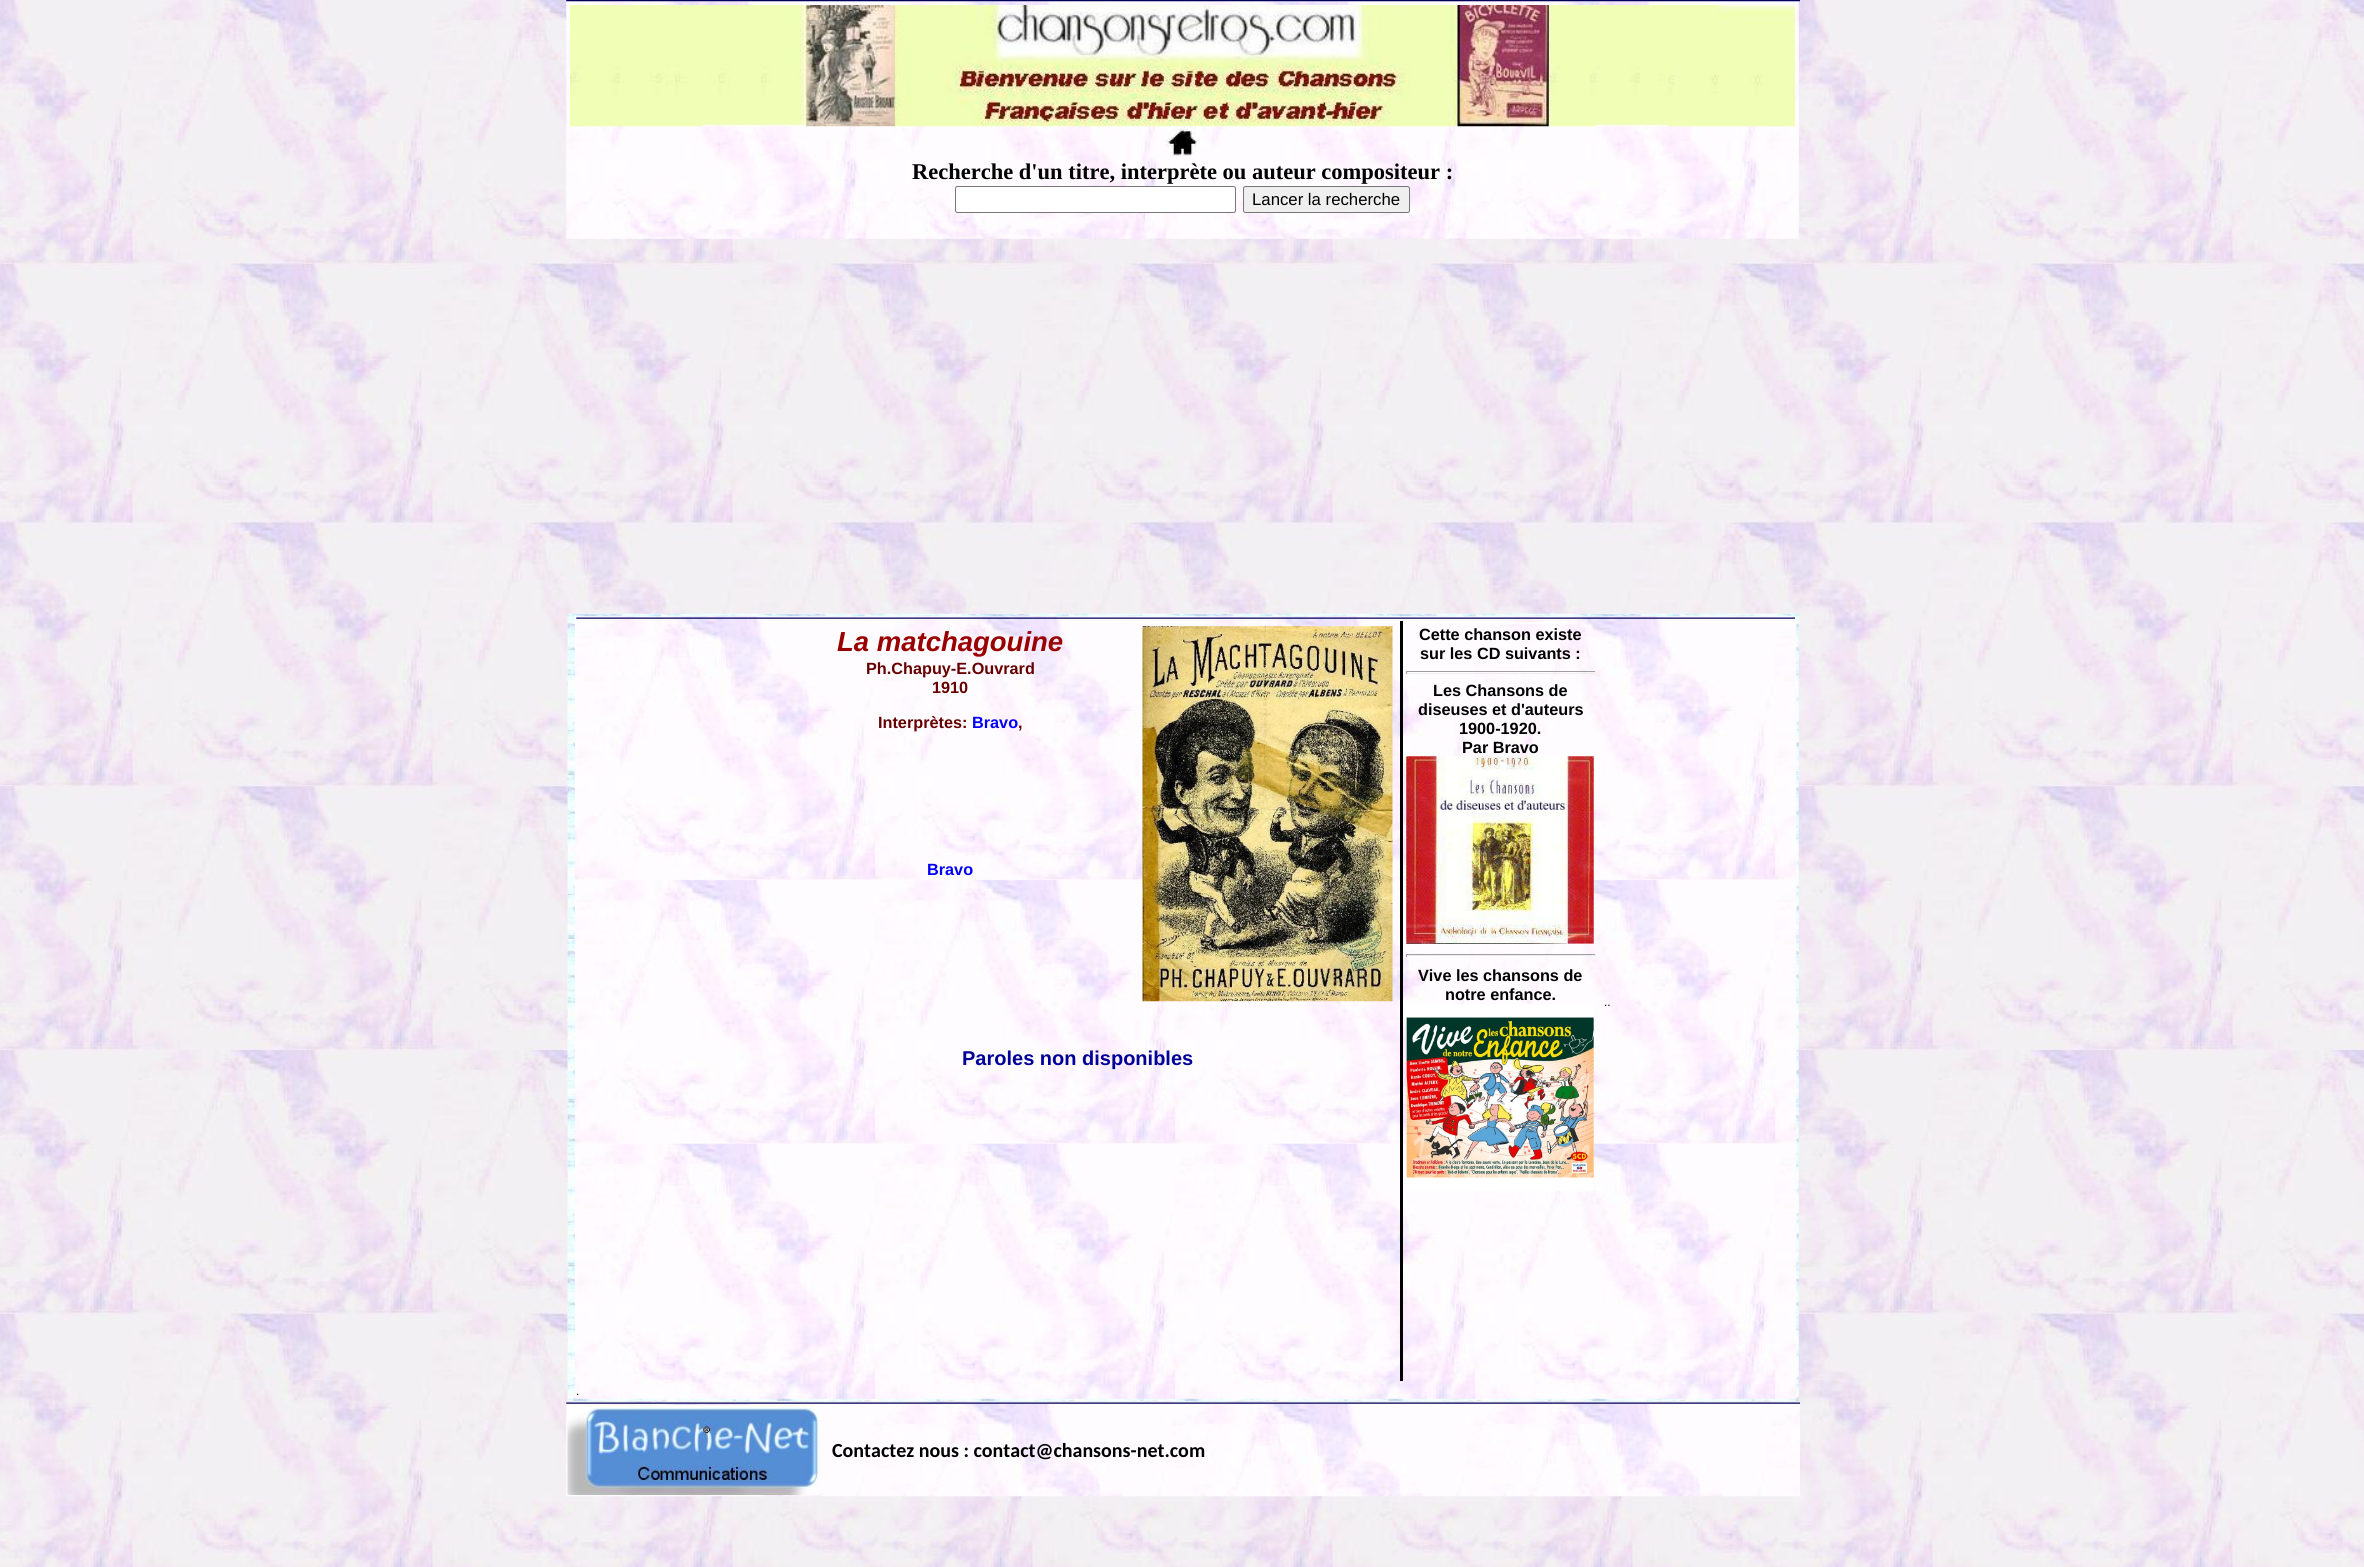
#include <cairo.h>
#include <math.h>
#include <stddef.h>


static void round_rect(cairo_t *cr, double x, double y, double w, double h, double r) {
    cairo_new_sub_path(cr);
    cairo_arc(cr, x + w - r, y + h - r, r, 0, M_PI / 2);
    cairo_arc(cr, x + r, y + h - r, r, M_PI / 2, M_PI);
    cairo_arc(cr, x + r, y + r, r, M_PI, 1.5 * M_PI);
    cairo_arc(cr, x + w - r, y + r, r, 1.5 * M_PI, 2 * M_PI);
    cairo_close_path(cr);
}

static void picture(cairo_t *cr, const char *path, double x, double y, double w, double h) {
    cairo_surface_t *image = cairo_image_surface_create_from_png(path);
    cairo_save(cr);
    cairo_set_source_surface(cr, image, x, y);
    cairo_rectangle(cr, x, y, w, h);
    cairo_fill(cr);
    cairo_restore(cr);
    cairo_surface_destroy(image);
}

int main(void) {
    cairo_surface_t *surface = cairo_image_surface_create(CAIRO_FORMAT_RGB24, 2364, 1567);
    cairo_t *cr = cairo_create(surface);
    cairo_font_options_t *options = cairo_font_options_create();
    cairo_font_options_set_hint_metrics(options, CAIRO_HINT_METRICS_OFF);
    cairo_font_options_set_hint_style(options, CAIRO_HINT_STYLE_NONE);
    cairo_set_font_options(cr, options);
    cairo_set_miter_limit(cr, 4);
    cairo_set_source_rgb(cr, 1, 1, 1);
    cairo_paint(cr);
    picture(cr, "img1.png", 0, 0, 2364, 1567);
    picture(cr, "img3.png", 566, 1, 1233, 238);
    picture(cr, "img2.png", 566, 0, 1234, 2);
    picture(cr, "img4.png", 570, 5, 1225, 122);
    picture(cr, "img5.png", 1166, 126, 33, 31);
    cairo_select_font_face(cr, "Liberation Serif", CAIRO_FONT_SLANT_NORMAL, CAIRO_FONT_WEIGHT_BOLD);
    cairo_set_font_size(cr, 22.5);
    cairo_set_source_rgb(cr, 0, 0, 0);
    cairo_move_to(cr, 912, 179);
    cairo_show_text(cr, "Recherche d'un titre, interprète ou auteur compositeur :");
    cairo_set_source_rgb(cr, 1, 1, 1);
    round_rect(cr, 955.5, 186.5, 280, 26, 2);
    cairo_fill_preserve(cr);
    cairo_set_source_rgb(cr, 0.463, 0.463, 0.463);
    cairo_set_line_width(cr, 1);
    cairo_stroke(cr);
    cairo_set_source_rgb(cr, 0.937, 0.937, 0.937);
    round_rect(cr, 1243.5, 186.5, 166, 26, 2);
    cairo_fill_preserve(cr);
    cairo_set_source_rgb(cr, 0.463, 0.463, 0.463);
    cairo_stroke(cr);
    cairo_select_font_face(cr, "Liberation Sans", CAIRO_FONT_SLANT_NORMAL, CAIRO_FONT_WEIGHT_NORMAL);
    cairo_set_font_size(cr, 16.75);
    cairo_set_source_rgb(cr, 0, 0, 0);
    cairo_move_to(cr, 1252, 205);
    cairo_show_text(cr, "Lancer la recherche");
    picture(cr, "img6.png", 567, 613, 1232, 789);
    picture(cr, "img7.png", 575, 616, 1222, 783);
    picture(cr, "img8.png", 576, 617, 1219, 2);
    cairo_select_font_face(cr, "Liberation Sans", CAIRO_FONT_SLANT_ITALIC, CAIRO_FONT_WEIGHT_BOLD);
    cairo_set_font_size(cr, 27.5);
    cairo_set_source_rgb(cr, 0.6, 0, 0);
    cairo_move_to(cr, 837, 651);
    cairo_show_text(cr, "La matchagouine");
    cairo_select_font_face(cr, "Liberation Sans", CAIRO_FONT_SLANT_NORMAL, CAIRO_FONT_WEIGHT_BOLD);
    cairo_set_font_size(cr, 16.25);
    cairo_set_source_rgb(cr, 0.4, 0, 0);
    cairo_move_to(cr, 866, 674);
    cairo_show_text(cr, "Ph.Chapuy-E.Ouvrard");
    cairo_move_to(cr, 932, 693);
    cairo_show_text(cr, "1910");
    cairo_move_to(cr, 878, 728);
    cairo_show_text(cr, "Interprètes:");
    cairo_set_source_rgb(cr, 0, 0, 1);
    cairo_move_to(cr, 972, 728);
    cairo_show_text(cr, "Bravo");
    cairo_set_source_rgb(cr, 0.4, 0, 0);
    cairo_move_to(cr, 1018, 728);
    cairo_show_text(cr, ",");
    cairo_set_source_rgb(cr, 0, 0, 1);
    cairo_move_to(cr, 927, 875);
    cairo_show_text(cr, "Bravo");
    picture(cr, "img9.png", 1142, 626, 251, 376);
    cairo_set_font_size(cr, 20);
    cairo_set_source_rgb(cr, 0, 0, 0.6);
    cairo_move_to(cr, 962, 1065);
    cairo_show_text(cr, "Paroles non disponibles");
    cairo_set_source_rgb(cr, 0, 0, 0);
    cairo_rectangle(cr, 1400, 621, 3, 760);
    cairo_fill(cr);
    picture(cr, "img10.png", 1508, 622, 67, 2);
    cairo_set_font_size(cr, 16.25);
    cairo_move_to(cr, 1419, 640);
    cairo_show_text(cr, "Cette chanson existe");
    cairo_move_to(cr, 1420, 659);
    cairo_show_text(cr, "sur les CD suivants :");
    cairo_set_source_rgb(cr, 0.624, 0.624, 0.624);
    cairo_rectangle(cr, 1406, 671, 190, 1);
    cairo_fill(cr);
    cairo_set_source_rgb(cr, 0.933, 0.933, 0.933);
    cairo_rectangle(cr, 1595, 671, 1, 3);
    cairo_fill(cr);
    cairo_rectangle(cr, 1406, 673, 190, 1);
    cairo_fill(cr);
    cairo_set_source_rgb(cr, 0.624, 0.624, 0.624);
    cairo_rectangle(cr, 1406, 671, 1, 3);
    cairo_fill(cr);
    cairo_set_source_rgb(cr, 0, 0, 0);
    cairo_move_to(cr, 1433, 696);
    cairo_show_text(cr, "Les Chansons de");
    cairo_move_to(cr, 1418, 715);
    cairo_show_text(cr, "diseuses et d'auteurs");
    cairo_move_to(cr, 1459, 734);
    cairo_show_text(cr, "1900-1920.");
    cairo_move_to(cr, 1462, 753);
    cairo_show_text(cr, "Par Bravo");
    picture(cr, "img11.png", 1406, 756, 188, 188);
    cairo_set_source_rgb(cr, 0.624, 0.624, 0.624);
    cairo_rectangle(cr, 1406, 954, 190, 1);
    cairo_fill(cr);
    cairo_set_source_rgb(cr, 0.933, 0.933, 0.933);
    cairo_rectangle(cr, 1595, 954, 1, 3);
    cairo_fill(cr);
    cairo_rectangle(cr, 1406, 955, 190, 1);
    cairo_fill(cr);
    cairo_set_source_rgb(cr, 0.624, 0.624, 0.624);
    cairo_rectangle(cr, 1406, 954, 1, 3);
    cairo_fill(cr);
    cairo_set_source_rgb(cr, 0, 0, 0);
    cairo_move_to(cr, 1418, 981);
    cairo_show_text(cr, "Vive les chansons de");
    cairo_move_to(cr, 1445, 1000);
    cairo_show_text(cr, "notre enfance.");
    picture(cr, "img12.png", 1406, 1003, 188, 188);
    cairo_select_font_face(cr, "Liberation Sans", CAIRO_FONT_SLANT_NORMAL, CAIRO_FONT_WEIGHT_NORMAL);
    cairo_set_font_size(cr, 12);
    cairo_move_to(cr, 1604, 1006);
    cairo_show_text(cr, "..");
    cairo_move_to(cr, 576, 1395);
    cairo_show_text(cr, ".");
    picture(cr, "img14.png", 566, 1403, 1234, 94);
    picture(cr, "img13.png", 566, 1402, 1234, 2);
    picture(cr, "img15.png", 567, 1405, 252, 90);
    cairo_select_font_face(cr, "Carlito", CAIRO_FONT_SLANT_NORMAL, CAIRO_FONT_WEIGHT_BOLD);
    cairo_set_font_size(cr, 20);
    cairo_move_to(cr, 832, 1457);
    cairo_show_text(cr, "Contactez nous : contact@chansons-net.com");
    cairo_surface_write_to_png(surface, "page.png");
    cairo_font_options_destroy(options);
    cairo_destroy(cr);
    cairo_surface_destroy(surface);
    return 0;
}
